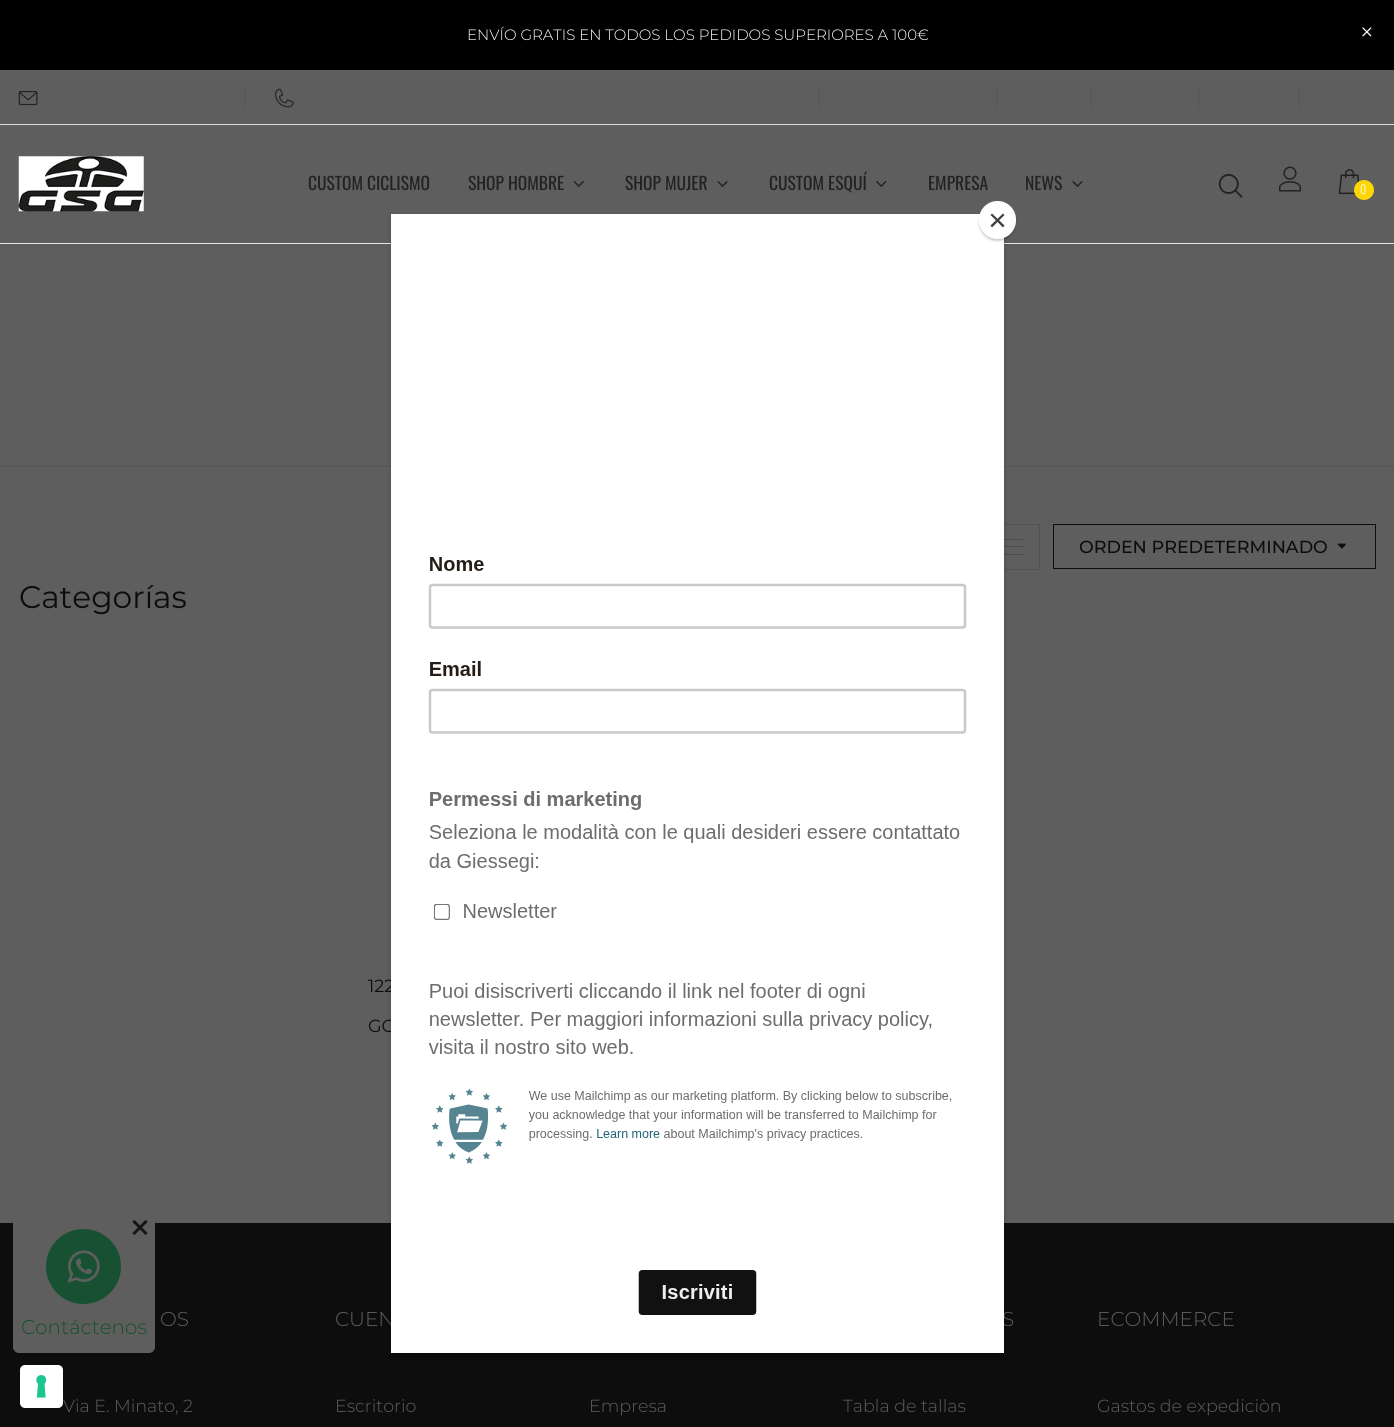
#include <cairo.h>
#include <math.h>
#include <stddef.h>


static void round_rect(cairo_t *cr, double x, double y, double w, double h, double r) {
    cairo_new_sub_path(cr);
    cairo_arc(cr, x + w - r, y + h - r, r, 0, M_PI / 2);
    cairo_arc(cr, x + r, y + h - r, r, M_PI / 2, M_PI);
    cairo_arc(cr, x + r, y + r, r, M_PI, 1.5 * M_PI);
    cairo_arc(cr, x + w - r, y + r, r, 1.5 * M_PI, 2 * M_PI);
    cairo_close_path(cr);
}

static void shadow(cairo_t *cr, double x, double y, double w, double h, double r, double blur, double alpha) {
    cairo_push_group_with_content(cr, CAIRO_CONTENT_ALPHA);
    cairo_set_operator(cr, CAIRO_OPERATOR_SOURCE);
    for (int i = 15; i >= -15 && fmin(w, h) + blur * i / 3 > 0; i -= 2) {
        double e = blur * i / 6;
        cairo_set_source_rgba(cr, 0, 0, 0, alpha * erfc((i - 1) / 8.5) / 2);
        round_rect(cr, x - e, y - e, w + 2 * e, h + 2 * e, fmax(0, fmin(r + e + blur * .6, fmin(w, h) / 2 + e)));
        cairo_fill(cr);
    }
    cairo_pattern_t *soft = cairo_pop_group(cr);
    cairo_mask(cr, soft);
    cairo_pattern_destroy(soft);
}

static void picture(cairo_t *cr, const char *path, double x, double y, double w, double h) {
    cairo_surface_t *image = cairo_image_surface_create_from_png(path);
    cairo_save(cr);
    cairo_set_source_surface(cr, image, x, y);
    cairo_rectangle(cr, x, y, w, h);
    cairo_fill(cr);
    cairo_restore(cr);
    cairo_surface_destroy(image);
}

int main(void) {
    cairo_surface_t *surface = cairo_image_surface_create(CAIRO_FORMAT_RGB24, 1394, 1427);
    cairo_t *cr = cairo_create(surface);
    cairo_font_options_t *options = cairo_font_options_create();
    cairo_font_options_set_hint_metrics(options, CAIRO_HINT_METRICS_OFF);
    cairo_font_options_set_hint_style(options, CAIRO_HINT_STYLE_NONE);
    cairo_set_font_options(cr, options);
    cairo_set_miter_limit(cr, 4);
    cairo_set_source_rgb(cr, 0.369, 0.369, 0.369);
    cairo_paint(cr);
    cairo_set_source_rgb(cr, 0.898, 0.898, 0.898);
    cairo_rectangle(cr, 0, 243, 1394, 1);
    cairo_fill(cr);
    cairo_set_source_rgb(cr, 0, 0, 0);
    cairo_rectangle(cr, 0, 0, 1394, 70);
    cairo_fill(cr);
    cairo_select_font_face(cr, "Montserrat Light", CAIRO_FONT_SLANT_NORMAL, CAIRO_FONT_WEIGHT_NORMAL);
    cairo_set_font_size(cr, 15);
    cairo_set_source_rgb(cr, 1, 1, 1);
    cairo_move_to(cr, 467, 40);
    cairo_show_text(cr, "ENVÍO GRATIS EN TODOS LOS PEDIDOS SUPERIORES A 100€");
    picture(cr, "img1.png", 1362, 27, 10, 10);
    cairo_set_source_rgb(cr, 0.867, 0.867, 0.867);
    cairo_rectangle(cr, 0, 124, 1394, 1);
    cairo_fill(cr);
    picture(cr, "img2.png", 18, 91, 20, 15);
    cairo_set_source_rgb(cr, 0.333, 0.333, 0.333);
    cairo_rectangle(cr, 244, 86, 1, 23);
    cairo_fill(cr);
    picture(cr, "img3.png", 275, 88, 19, 20);
    cairo_rectangle(cr, 819, 86, 1, 23);
    cairo_fill(cr);
    cairo_rectangle(cr, 996, 86, 1, 23);
    cairo_fill(cr);
    cairo_rectangle(cr, 1091, 86, 1, 23);
    cairo_fill(cr);
    cairo_rectangle(cr, 1198, 86, 1, 23);
    cairo_fill(cr);
    cairo_rectangle(cr, 1299, 86, 1, 23);
    cairo_fill(cr);
    picture(cr, "img4.png", 18, 156, 126, 56);
    cairo_select_font_face(cr, "Oswald", CAIRO_FONT_SLANT_NORMAL, CAIRO_FONT_WEIGHT_NORMAL);
    cairo_set_font_size(cr, 17.5);
    cairo_set_source_rgb(cr, 0.133, 0.133, 0.133);
    cairo_move_to(cr, 308, 190);
    cairo_show_text(cr, "CUSTOM CICLISMO");
    cairo_move_to(cr, 468, 190);
    cairo_show_text(cr, "SHOP HOMBRE");
    picture(cr, "img5.png", 573, 181, 11, 6);
    cairo_move_to(cr, 625, 190);
    cairo_show_text(cr, "SHOP MUJER");
    picture(cr, "img6.png", 717, 181, 11, 6);
    cairo_move_to(cr, 769, 190);
    cairo_show_text(cr, "CUSTOM ESQUÍ");
    picture(cr, "img7.png", 876, 181, 11, 6);
    cairo_move_to(cr, 928, 190);
    cairo_show_text(cr, "EMPRESA");
    cairo_move_to(cr, 1025, 190);
    cairo_show_text(cr, "NEWS");
    picture(cr, "img6.png", 1072, 181, 11, 6);
    picture(cr, "img8.png", 1218, 174, 25, 24);
    picture(cr, "img9.png", 1279, 166, 22, 26);
    picture(cr, "img10.png", 1338, 169, 22, 26);
    cairo_set_source_rgb(cr, 0.996, 0.839, 0.012);
    cairo_arc(cr, 1364, 190, 10, 0, 2 * M_PI);
    cairo_fill(cr);
    cairo_select_font_face(cr, "Oswald Light", CAIRO_FONT_SLANT_NORMAL, CAIRO_FONT_WEIGHT_NORMAL);
    cairo_set_font_size(cr, 12);
    cairo_set_source_rgb(cr, 1, 1, 1);
    cairo_move_to(cr, 1360, 194);
    cairo_show_text(cr, "0");
    cairo_set_source_rgb(cr, 0.333, 0.333, 0.333);
    cairo_rectangle(cr, 0, 466, 1394, 1);
    cairo_fill(cr);
    cairo_select_font_face(cr, "Montserrat", CAIRO_FONT_SLANT_NORMAL, CAIRO_FONT_WEIGHT_NORMAL);
    cairo_set_font_size(cr, 31.25);
    cairo_set_source_rgb(cr, 0.051, 0.051, 0.051);
    cairo_move_to(cr, 19, 608);
    cairo_show_text(cr, "Categorías");
    cairo_rectangle(cr, 880.5, 524.5, 159, 45);
    cairo_set_source_rgb(cr, 0.325, 0.325, 0.325);
    cairo_set_line_width(cr, 1);
    cairo_stroke(cr);
    cairo_set_source_rgb(cr, 0.298, 0.298, 0.298);
    round_rect(cr, 1003, 539, 21, 1, 0.5);
    cairo_fill(cr);
    round_rect(cr, 1003, 546, 21, 1, 0.5);
    cairo_fill(cr);
    round_rect(cr, 1003, 554, 21, 1, 0.5);
    cairo_fill(cr);
    cairo_rectangle(cr, 1053.5, 524.5, 322, 44);
    cairo_set_source_rgb(cr, 0.051, 0.051, 0.051);
    cairo_stroke(cr);
    cairo_select_font_face(cr, "Montserrat Medium", CAIRO_FONT_SLANT_NORMAL, CAIRO_FONT_WEIGHT_NORMAL);
    cairo_set_font_size(cr, 17.5);
    cairo_move_to(cr, 1079, 553);
    cairo_show_text(cr, "ORDEN PREDETERMINADO");
    picture(cr, "img11.png", 1337, 543, 9, 6);
    cairo_select_font_face(cr, "Montserrat", CAIRO_FONT_SLANT_NORMAL, CAIRO_FONT_WEIGHT_NORMAL);
    cairo_move_to(cr, 368, 992);
    cairo_show_text(cr, "122");
    cairo_move_to(cr, 368, 1032);
    cairo_show_text(cr, "GO");
    cairo_rectangle(cr, 0, 1223, 1394, 204);
    cairo_fill(cr);
    cairo_select_font_face(cr, "Montserrat Light", CAIRO_FONT_SLANT_NORMAL, CAIRO_FONT_WEIGHT_NORMAL);
    cairo_set_font_size(cr, 20);
    cairo_set_source_rgb(cr, 0.369, 0.369, 0.369);
    cairo_move_to(cr, 160, 1326);
    cairo_show_text(cr, "OS");
    cairo_set_font_size(cr, 17.5);
    cairo_move_to(cr, 63, 1412);
    cairo_show_text(cr, "Via E. Minato, 2");
    cairo_set_font_size(cr, 20);
    cairo_move_to(cr, 335, 1326);
    cairo_show_text(cr, "CUEN");
    cairo_set_font_size(cr, 17.5);
    cairo_move_to(cr, 335, 1412);
    cairo_show_text(cr, "Escritorio");
    cairo_move_to(cr, 589, 1412);
    cairo_show_text(cr, "Empresa");
    cairo_set_font_size(cr, 20);
    cairo_move_to(cr, 1002, 1326);
    cairo_show_text(cr, "S");
    cairo_set_font_size(cr, 17.5);
    cairo_move_to(cr, 843, 1412);
    cairo_show_text(cr, "Tabla de tallas");
    cairo_set_font_size(cr, 20);
    cairo_move_to(cr, 1097, 1326);
    cairo_show_text(cr, "ECOMMERCE");
    cairo_set_font_size(cr, 17.5);
    cairo_move_to(cr, 1097, 1412);
    cairo_show_text(cr, "Gastos de expediciòn");
    round_rect(cr, 13, 1210, 142, 143, 6);
    cairo_fill(cr);
    picture(cr, "img12.png", 132, 1220, 16, 15);
    cairo_set_source_rgb(cr, 0.094, 0.318, 0.196);
    cairo_arc(cr, 83.5, 1266.5, 37.5, 0, 2 * M_PI);
    cairo_fill(cr);
    picture(cr, "img13.png", 67, 1250, 33, 33);
    cairo_set_font_size(cr, 20);
    cairo_set_source_rgb(cr, 0.086, 0.314, 0.169);
    cairo_move_to(cr, 21, 1334);
    cairo_show_text(cr, "Contáctenos");
    cairo_set_source_rgb(cr, 0, 0, 0);
    shadow(cr, 391, 216, 613, 1139, 0, 2.5, 0.2);
    picture(cr, "img14.png", 391, 214, 613, 1139);
    shadow(cr, 979, 204, 37, 37, 18.5, 1, 0.2);
    cairo_set_source_rgb(cr, 1, 1, 1);
    round_rect(cr, 979, 201, 37, 38, 18.5);
    cairo_fill(cr);
    cairo_set_source_rgb(cr, 0.255, 0.255, 0.255);
    cairo_new_path(cr);
    cairo_move_to(cr, 1003, 213.5);
    cairo_line_to(cr, 1004.5, 215);
    cairo_line_to(cr, 992, 227.5);
    cairo_line_to(cr, 990.5, 225.5);
    cairo_close_path(cr);
    cairo_fill(cr);
    cairo_new_path(cr);
    cairo_move_to(cr, 990.5, 215);
    cairo_line_to(cr, 992, 213.5);
    cairo_line_to(cr, 1004.5, 225.5);
    cairo_line_to(cr, 1003, 227.5);
    cairo_close_path(cr);
    cairo_fill(cr);
    round_rect(cr, 19.5, 1364.5, 44, 44, 5.5);
    cairo_set_source_rgba(cr, 0, 0, 0, 0.15);
    cairo_stroke(cr);
    cairo_set_source_rgb(cr, 1, 1, 1);
    round_rect(cr, 20, 1365, 43, 43, 5);
    cairo_fill(cr);
    picture(cr, "img15.png", 36, 1375, 11, 23);
    cairo_surface_write_to_png(surface, "page.png");
    cairo_font_options_destroy(options);
    cairo_destroy(cr);
    cairo_surface_destroy(surface);
    return 0;
}
